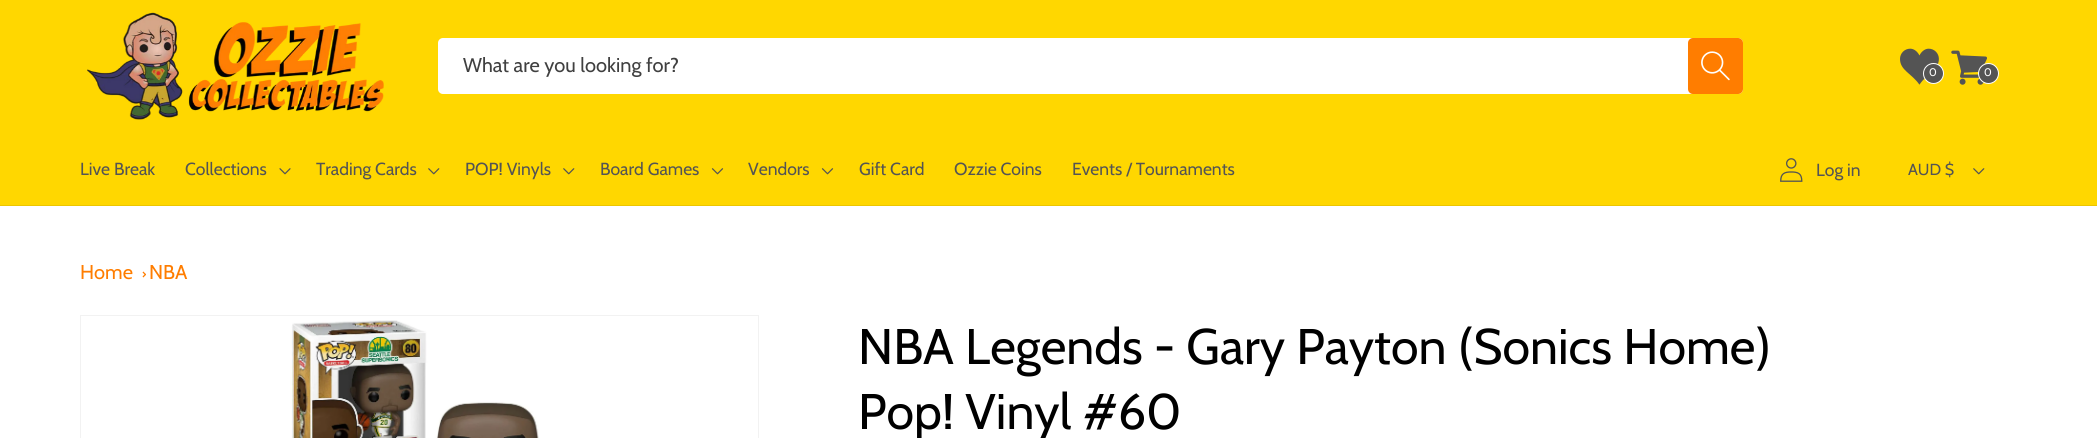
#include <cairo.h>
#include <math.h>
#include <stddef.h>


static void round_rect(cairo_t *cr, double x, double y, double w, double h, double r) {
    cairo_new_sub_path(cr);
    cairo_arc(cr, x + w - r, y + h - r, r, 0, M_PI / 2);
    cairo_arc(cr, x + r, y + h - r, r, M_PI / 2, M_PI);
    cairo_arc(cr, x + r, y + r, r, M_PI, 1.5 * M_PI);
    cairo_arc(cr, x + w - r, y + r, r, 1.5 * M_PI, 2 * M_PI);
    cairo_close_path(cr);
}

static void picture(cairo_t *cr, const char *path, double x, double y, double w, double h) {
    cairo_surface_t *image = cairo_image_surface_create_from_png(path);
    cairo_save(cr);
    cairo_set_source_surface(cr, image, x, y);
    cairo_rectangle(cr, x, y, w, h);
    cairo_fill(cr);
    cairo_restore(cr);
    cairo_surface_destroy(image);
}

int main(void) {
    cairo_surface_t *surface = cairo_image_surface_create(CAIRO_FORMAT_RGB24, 2097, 438);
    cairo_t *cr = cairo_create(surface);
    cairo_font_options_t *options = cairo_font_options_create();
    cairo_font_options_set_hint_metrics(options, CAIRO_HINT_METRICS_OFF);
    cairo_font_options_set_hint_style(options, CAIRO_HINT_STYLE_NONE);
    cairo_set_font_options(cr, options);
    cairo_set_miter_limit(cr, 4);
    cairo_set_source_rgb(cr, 1, 1, 1);
    cairo_paint(cr);
    cairo_set_source_rgb(cr, 1, 0.843, 0);
    cairo_rectangle(cr, 0, 0, 2097, 205);
    cairo_fill(cr);
    cairo_set_source_rgb(cr, 0.922, 0.776, 0);
    cairo_rectangle(cr, 0, 205, 2097, 1);
    cairo_fill(cr);
    picture(cr, "img1.png", 87, 12, 297, 108);
    cairo_set_source_rgb(cr, 1, 1, 1);
    round_rect(cr, 438, 38, 1305, 56, 5);
    cairo_fill(cr);
    cairo_select_font_face(cr, "Cabin", CAIRO_FONT_SLANT_NORMAL, CAIRO_FONT_WEIGHT_NORMAL);
    cairo_set_font_size(cr, 20);
    cairo_set_source_rgb(cr, 0.251, 0.251, 0.251);
    cairo_move_to(cr, 463, 72);
    cairo_show_text(cr, "What are you looking for?");
    cairo_set_source_rgb(cr, 1, 0.49, 0);
    round_rect(cr, 1688, 38, 55, 56, 5);
    cairo_fill(cr);
    picture(cr, "img2.png", 1701, 51, 29, 30);
    picture(cr, "img3.png", 1900, 48, 39, 37);
    cairo_set_source_rgb(cr, 0.329, 0.329, 0.329);
    cairo_arc(cr, 1933.5, 73.5, 10, 0, 2 * M_PI);
    cairo_fill_preserve(cr);
    cairo_set_source_rgb(cr, 1, 1, 1);
    cairo_set_line_width(cr, 1);
    cairo_stroke(cr);
    cairo_set_font_size(cr, 11);
    cairo_move_to(cr, 1929, 76);
    cairo_show_text(cr, "0");
    picture(cr, "img4.png", 1951, 50, 36, 35);
    cairo_set_source_rgb(cr, 0.329, 0.329, 0.329);
    cairo_arc(cr, 1988.5, 73.5, 10, 0, 2 * M_PI);
    cairo_fill_preserve(cr);
    cairo_set_source_rgb(cr, 1, 1, 1);
    cairo_stroke(cr);
    cairo_move_to(cr, 1984, 76);
    cairo_show_text(cr, "0");
    cairo_set_font_size(cr, 17.5);
    cairo_set_source_rgb(cr, 0.329, 0.329, 0.329);
    cairo_move_to(cr, 80, 175);
    cairo_show_text(cr, "Live Break");
    cairo_move_to(cr, 185, 175);
    cairo_show_text(cr, "Collections");
    picture(cr, "img5.png", 279, 168, 12, 7);
    cairo_move_to(cr, 316, 175);
    cairo_show_text(cr, "Trading Cards");
    picture(cr, "img6.png", 428, 168, 12, 7);
    cairo_move_to(cr, 465, 175);
    cairo_show_text(cr, "POP! Vinyls");
    picture(cr, "img6.png", 563, 168, 12, 7);
    cairo_move_to(cr, 600, 175);
    cairo_show_text(cr, "Board Games");
    picture(cr, "img7.png", 711, 168, 13, 7);
    cairo_move_to(cr, 748, 175);
    cairo_show_text(cr, "Vendors");
    picture(cr, "img7.png", 821, 168, 13, 7);
    cairo_move_to(cr, 859, 175);
    cairo_show_text(cr, "Gift Card");
    cairo_move_to(cr, 954, 175);
    cairo_show_text(cr, "Ozzie Coins");
    cairo_move_to(cr, 1072, 175);
    cairo_show_text(cr, "Events / Tournaments");
    picture(cr, "img8.png", 1780, 158, 23, 24);
    cairo_move_to(cr, 1816, 176);
    cairo_show_text(cr, "Log in");
    cairo_set_font_size(cr, 16);
    cairo_move_to(cr, 1908, 175);
    cairo_show_text(cr, "AUD $");
    picture(cr, "img6.png", 1973, 168, 12, 7);
    cairo_set_font_size(cr, 20);
    cairo_set_source_rgb(cr, 1, 0.49, 0);
    cairo_move_to(cr, 80, 279);
    cairo_show_text(cr, "Home");
    cairo_new_path(cr);
    cairo_move_to(cr, 143.5, 271.5);
    cairo_line_to(cr, 146, 274.5);
    cairo_line_to(cr, 145.5, 275.5);
    cairo_line_to(cr, 142.5, 272.5);
    cairo_close_path(cr);
    cairo_fill(cr);
    cairo_new_path(cr);
    cairo_move_to(cr, 145.5, 273.5);
    cairo_line_to(cr, 146, 274.5);
    cairo_line_to(cr, 143.5, 277.5);
    cairo_line_to(cr, 142.5, 276.5);
    cairo_close_path(cr);
    cairo_fill(cr);
    cairo_move_to(cr, 149, 279);
    cairo_show_text(cr, "NBA");
    cairo_rectangle(cr, 80.5, 315.5, 678, 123);
    cairo_set_source_rgb(cr, 0.949, 0.949, 0.949);
    cairo_stroke(cr);
    picture(cr, "img9.png", 290, 320, 249, 118);
    cairo_set_font_size(cr, 50);
    cairo_set_source_rgb(cr, 0, 0, 0);
    cairo_move_to(cr, 858, 364);
    cairo_show_text(cr, "NBA Legends - Gary Payton (Sonics Home)");
    cairo_move_to(cr, 858, 429);
    cairo_show_text(cr, "Pop! Vinyl #60");
    cairo_surface_write_to_png(surface, "page.png");
    cairo_font_options_destroy(options);
    cairo_destroy(cr);
    cairo_surface_destroy(surface);
    return 0;
}
